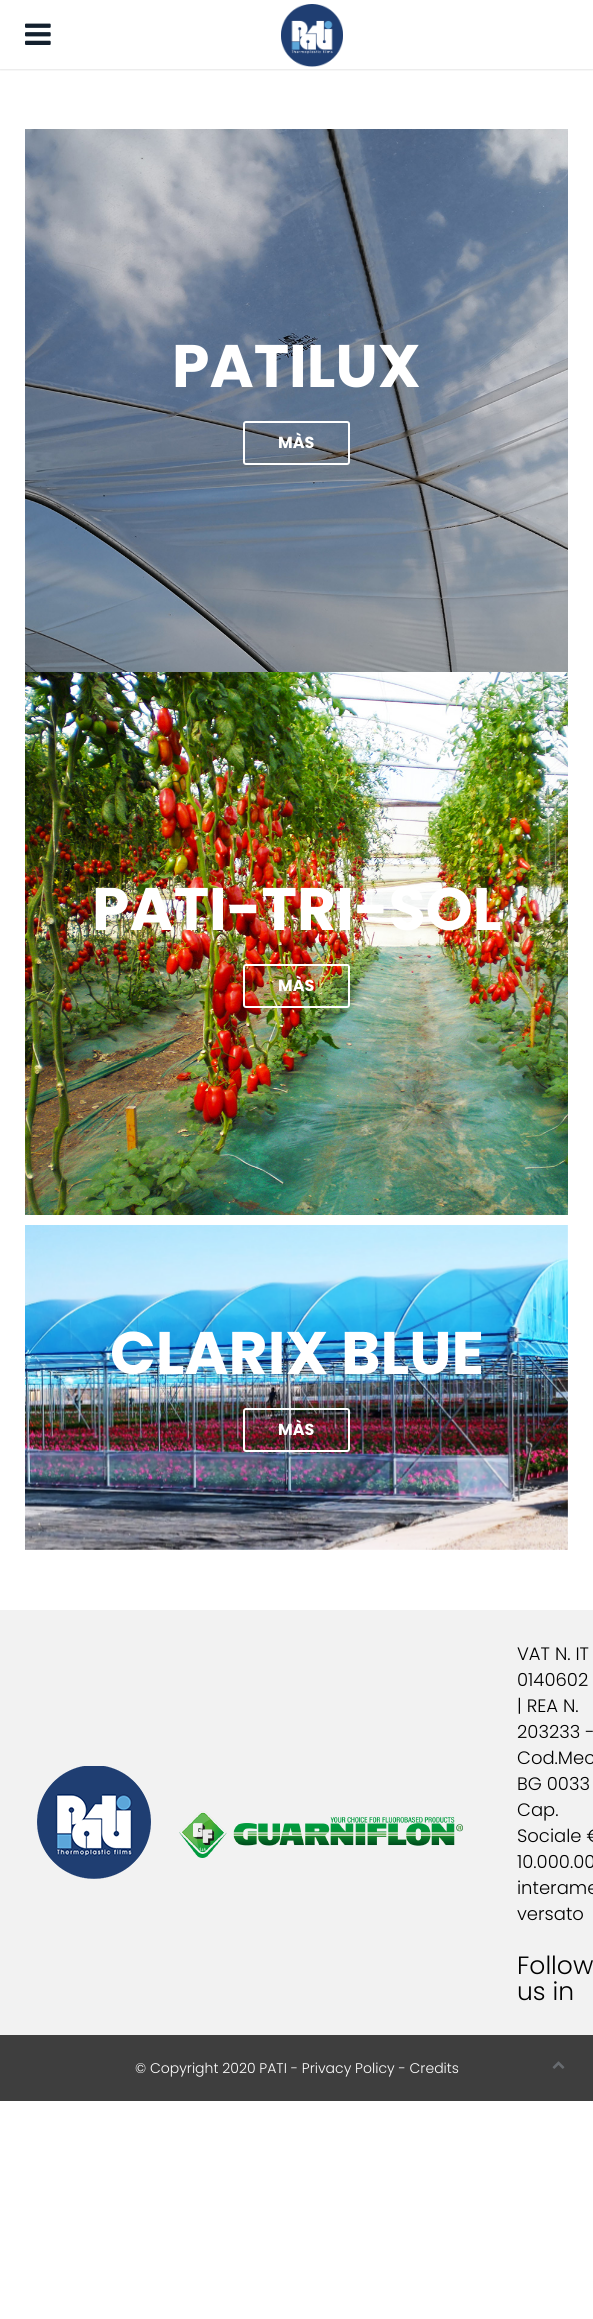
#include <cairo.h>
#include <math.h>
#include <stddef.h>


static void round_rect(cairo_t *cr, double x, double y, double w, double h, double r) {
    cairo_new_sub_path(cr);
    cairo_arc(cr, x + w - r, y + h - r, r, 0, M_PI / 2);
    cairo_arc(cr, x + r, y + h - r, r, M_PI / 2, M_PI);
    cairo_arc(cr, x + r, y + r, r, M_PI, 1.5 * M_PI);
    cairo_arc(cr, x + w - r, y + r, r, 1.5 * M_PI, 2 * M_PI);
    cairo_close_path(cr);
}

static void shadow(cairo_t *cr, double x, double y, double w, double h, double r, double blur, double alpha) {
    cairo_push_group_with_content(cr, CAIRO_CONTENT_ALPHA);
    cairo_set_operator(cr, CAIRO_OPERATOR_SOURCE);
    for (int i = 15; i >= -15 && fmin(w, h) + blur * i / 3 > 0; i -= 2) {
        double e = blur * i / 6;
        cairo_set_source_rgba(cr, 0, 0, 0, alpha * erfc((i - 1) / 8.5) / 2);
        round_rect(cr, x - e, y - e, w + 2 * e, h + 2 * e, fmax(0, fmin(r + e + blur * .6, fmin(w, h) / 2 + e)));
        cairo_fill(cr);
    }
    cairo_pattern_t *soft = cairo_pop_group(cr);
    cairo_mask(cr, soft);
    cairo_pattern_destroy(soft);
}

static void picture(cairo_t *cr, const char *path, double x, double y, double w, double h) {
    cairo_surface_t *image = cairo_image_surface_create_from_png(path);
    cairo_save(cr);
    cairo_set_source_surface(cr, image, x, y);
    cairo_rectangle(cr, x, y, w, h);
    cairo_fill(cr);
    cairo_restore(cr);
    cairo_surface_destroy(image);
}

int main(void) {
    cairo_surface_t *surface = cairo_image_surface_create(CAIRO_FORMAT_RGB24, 593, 2319);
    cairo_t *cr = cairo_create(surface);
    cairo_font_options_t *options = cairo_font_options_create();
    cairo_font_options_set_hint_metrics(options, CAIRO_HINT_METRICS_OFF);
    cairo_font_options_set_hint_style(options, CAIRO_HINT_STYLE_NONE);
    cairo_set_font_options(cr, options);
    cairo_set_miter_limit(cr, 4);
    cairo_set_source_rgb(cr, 1, 1, 1);
    cairo_paint(cr);
    cairo_save(cr);
    cairo_rectangle(cr, 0, 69, 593, 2);
    cairo_clip(cr);
    cairo_set_source_rgb(cr, 0, 0, 0);
    shadow(cr, 0, 1, 593, 69, 0, 1, 0.1);
    cairo_restore(cr);
    picture(cr, "img1.png", 25, 23, 26, 22);
    picture(cr, "img2.png", 281, 4, 62, 63);
    picture(cr, "img3.png", 25, 129, 543, 543);
    cairo_select_font_face(cr, "Poppins", CAIRO_FONT_SLANT_NORMAL, CAIRO_FONT_WEIGHT_BOLD);
    cairo_set_font_size(cr, 60);
    cairo_set_source_rgb(cr, 1, 1, 1);
    cairo_move_to(cr, 172, 387);
    cairo_show_text(cr, "PATILUX");
    round_rect(cr, 244, 422, 105, 42, 2);
    cairo_stroke(cr);
    cairo_set_font_size(cr, 16);
    cairo_move_to(cr, 278, 448);
    cairo_show_text(cr, "MÀS");
    picture(cr, "img4.png", 25, 672, 543, 543);
    cairo_set_font_size(cr, 60);
    cairo_move_to(cr, 92, 930);
    cairo_show_text(cr, "PATI-TRI-SOL");
    round_rect(cr, 244, 965, 105, 42, 2);
    cairo_stroke(cr);
    cairo_set_font_size(cr, 16);
    cairo_move_to(cr, 278, 991);
    cairo_show_text(cr, "MÀS");
    picture(cr, "img5.png", 25, 1225, 543, 325);
    cairo_set_font_size(cr, 60);
    cairo_move_to(cr, 110, 1374);
    cairo_show_text(cr, "CLARIX BLUE");
    round_rect(cr, 244, 1409, 105, 42, 2);
    cairo_stroke(cr);
    cairo_set_font_size(cr, 16);
    cairo_move_to(cr, 278, 1435);
    cairo_show_text(cr, "MÀS");
    cairo_set_source_rgb(cr, 0.949, 0.949, 0.949);
    cairo_rectangle(cr, 0, 1610, 593, 425);
    cairo_fill(cr);
    picture(cr, "img6.png", 37, 1766, 426, 113);
    cairo_select_font_face(cr, "Poppins Light", CAIRO_FONT_SLANT_NORMAL, CAIRO_FONT_WEIGHT_NORMAL);
    cairo_set_font_size(cr, 18);
    cairo_set_source_rgb(cr, 0, 0, 0);
    cairo_move_to(cr, 517, 1660);
    cairo_show_text(cr, "VAT N. IT");
    cairo_move_to(cr, 517, 1686);
    cairo_show_text(cr, "0140602");
    cairo_move_to(cr, 517, 1712);
    cairo_show_text(cr, "| REA N.");
    cairo_move_to(cr, 517, 1738);
    cairo_show_text(cr, "203233 -");
    cairo_move_to(cr, 517, 1764);
    cairo_show_text(cr, "Cod.Mec");
    cairo_move_to(cr, 517, 1790);
    cairo_show_text(cr, "BG 0033");
    cairo_move_to(cr, 517, 1816);
    cairo_show_text(cr, "Cap.");
    cairo_move_to(cr, 517, 1842);
    cairo_show_text(cr, "Sociale €");
    cairo_move_to(cr, 517, 1868);
    cairo_show_text(cr, "10.000.00");
    cairo_move_to(cr, 517, 1894);
    cairo_show_text(cr, "interame");
    cairo_move_to(cr, 517, 1920);
    cairo_show_text(cr, "versato");
    cairo_set_font_size(cr, 25);
    cairo_move_to(cr, 517, 1974);
    cairo_show_text(cr, "Follow");
    cairo_move_to(cr, 517, 2000);
    cairo_show_text(cr, "us in");
    cairo_set_source_rgb(cr, 0.243, 0.243, 0.243);
    cairo_rectangle(cr, 0, 2035, 593, 66);
    cairo_fill(cr);
    cairo_set_font_size(cr, 14);
    cairo_set_source_rgb(cr, 1, 1, 1);
    cairo_move_to(cr, 135, 2073);
    cairo_show_text(cr, "© Copyright 2020 PATI - Privacy Policy - Credits");
    picture(cr, "img7.png", 552, 2061, 13, 8);
    cairo_surface_write_to_png(surface, "page.png");
    cairo_font_options_destroy(options);
    cairo_destroy(cr);
    cairo_surface_destroy(surface);
    return 0;
}
